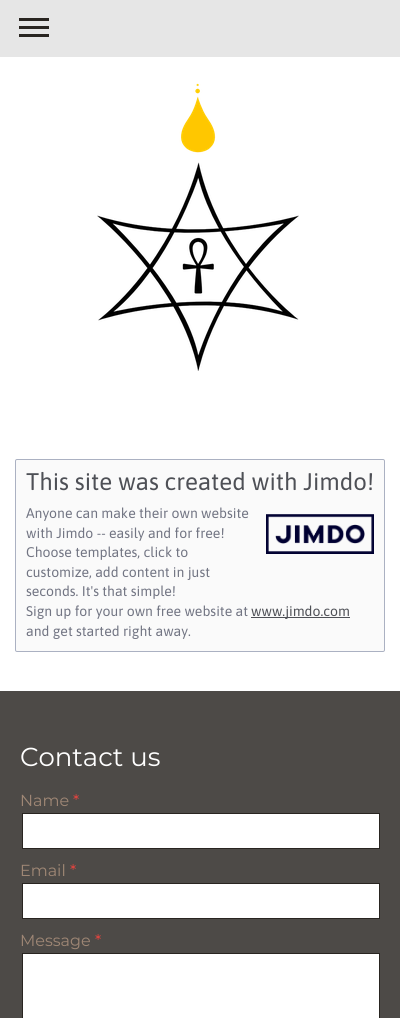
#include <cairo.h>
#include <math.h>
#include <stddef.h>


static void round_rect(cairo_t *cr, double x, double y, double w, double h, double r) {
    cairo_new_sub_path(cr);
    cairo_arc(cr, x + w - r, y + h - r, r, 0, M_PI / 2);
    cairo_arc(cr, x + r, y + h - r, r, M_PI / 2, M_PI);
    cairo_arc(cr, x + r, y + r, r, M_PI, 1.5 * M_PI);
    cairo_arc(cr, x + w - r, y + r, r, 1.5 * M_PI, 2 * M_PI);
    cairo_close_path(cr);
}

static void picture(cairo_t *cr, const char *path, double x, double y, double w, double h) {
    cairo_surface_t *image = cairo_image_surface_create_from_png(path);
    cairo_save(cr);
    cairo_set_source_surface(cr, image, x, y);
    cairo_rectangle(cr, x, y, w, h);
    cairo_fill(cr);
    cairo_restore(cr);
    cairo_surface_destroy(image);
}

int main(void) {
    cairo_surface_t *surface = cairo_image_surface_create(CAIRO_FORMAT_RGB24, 400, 1018);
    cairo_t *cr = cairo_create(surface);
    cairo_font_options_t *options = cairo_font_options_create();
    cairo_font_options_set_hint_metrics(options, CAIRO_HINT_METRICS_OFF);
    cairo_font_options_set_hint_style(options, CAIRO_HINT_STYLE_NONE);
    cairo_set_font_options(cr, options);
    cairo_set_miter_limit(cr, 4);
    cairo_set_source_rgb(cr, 1, 1, 1);
    cairo_paint(cr);
    cairo_set_source_rgb(cr, 0.902, 0.902, 0.902);
    cairo_rectangle(cr, 0, 0, 400, 57);
    cairo_fill(cr);
    cairo_set_source_rgb(cr, 0.161, 0.145, 0.129);
    cairo_rectangle(cr, 19, 26, 30, 3);
    cairo_fill(cr);
    cairo_rectangle(cr, 19, 18, 30, 3);
    cairo_fill(cr);
    cairo_rectangle(cr, 19, 34, 30, 3);
    cairo_fill(cr);
    picture(cr, "img1.png", 97, 83, 202, 288);
    cairo_set_source_rgb(cr, 0.98, 0.98, 0.98);
    round_rect(cr, 15.5, 459.5, 369, 192, 1.5);
    cairo_fill_preserve(cr);
    cairo_set_source_rgb(cr, 0.671, 0.694, 0.761);
    cairo_set_line_width(cr, 1);
    cairo_stroke(cr);
    cairo_select_font_face(cr, "Asap", CAIRO_FONT_SLANT_NORMAL, CAIRO_FONT_WEIGHT_NORMAL);
    cairo_set_font_size(cr, 24);
    cairo_set_source_rgb(cr, 0.306, 0.314, 0.337);
    cairo_move_to(cr, 26, 490);
    cairo_show_text(cr, "This site was created with Jimdo!");
    cairo_set_font_size(cr, 14);
    cairo_set_source_rgb(cr, 0.447, 0.459, 0.514);
    cairo_move_to(cr, 26, 518);
    cairo_show_text(cr, "Anyone can make their own website");
    cairo_move_to(cr, 26, 538);
    cairo_show_text(cr, "with Jimdo -- easily and for free!");
    cairo_move_to(cr, 26, 557);
    cairo_show_text(cr, "Choose templates, click to");
    cairo_move_to(cr, 26, 577);
    cairo_show_text(cr, "customize, add content in just");
    cairo_move_to(cr, 26, 596);
    cairo_show_text(cr, "seconds. It's that simple!");
    cairo_move_to(cr, 26, 616);
    cairo_show_text(cr, "Sign up for your own free website at");
    cairo_set_source_rgb(cr, 0.306, 0.314, 0.337);
    cairo_rectangle(cr, 251, 617, 99, 1);
    cairo_fill(cr);
    cairo_move_to(cr, 251, 616);
    cairo_show_text(cr, "www.jimdo.com");
    cairo_set_source_rgb(cr, 0.447, 0.459, 0.514);
    cairo_move_to(cr, 26, 636);
    cairo_show_text(cr, "and get started right away.");
    picture(cr, "img2.png", 266, 514, 108, 40);
    cairo_set_source_rgb(cr, 0.302, 0.29, 0.278);
    cairo_rectangle(cr, 0, 691, 400, 327);
    cairo_fill(cr);
    cairo_select_font_face(cr, "Montserrat Thin", CAIRO_FONT_SLANT_NORMAL, CAIRO_FONT_WEIGHT_NORMAL);
    cairo_set_font_size(cr, 26);
    cairo_set_source_rgb(cr, 1, 1, 1);
    cairo_move_to(cr, 20, 766);
    cairo_show_text(cr, "Contact us");
    cairo_set_font_size(cr, 16);
    cairo_set_source_rgb(cr, 0.624, 0.529, 0.459);
    cairo_move_to(cr, 20, 806);
    cairo_show_text(cr, "Name");
    cairo_set_source_rgb(cr, 0.922, 0.263, 0.243);
    cairo_move_to(cr, 73, 806);
    cairo_show_text(cr, "*");
    cairo_set_source_rgb(cr, 1, 1, 1);
    cairo_rectangle(cr, 22.5, 813.5, 357, 35);
    cairo_fill_preserve(cr);
    cairo_set_source_rgb(cr, 0.161, 0.145, 0.129);
    cairo_stroke(cr);
    cairo_set_source_rgb(cr, 0.624, 0.529, 0.459);
    cairo_move_to(cr, 20, 876);
    cairo_show_text(cr, "Email");
    cairo_set_source_rgb(cr, 0.922, 0.263, 0.243);
    cairo_move_to(cr, 70, 876);
    cairo_show_text(cr, "*");
    cairo_set_source_rgb(cr, 1, 1, 1);
    cairo_rectangle(cr, 22.5, 883.5, 357, 35);
    cairo_fill_preserve(cr);
    cairo_set_source_rgb(cr, 0.161, 0.145, 0.129);
    cairo_stroke(cr);
    cairo_set_source_rgb(cr, 0.624, 0.529, 0.459);
    cairo_move_to(cr, 20, 946);
    cairo_show_text(cr, "Message");
    cairo_set_source_rgb(cr, 0.922, 0.263, 0.243);
    cairo_move_to(cr, 95, 946);
    cairo_show_text(cr, "*");
    cairo_set_source_rgb(cr, 1, 1, 1);
    cairo_rectangle(cr, 22.5, 953.5, 357, 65);
    cairo_fill_preserve(cr);
    cairo_set_source_rgb(cr, 0.161, 0.145, 0.129);
    cairo_stroke(cr);
    cairo_surface_write_to_png(surface, "page.png");
    cairo_font_options_destroy(options);
    cairo_destroy(cr);
    cairo_surface_destroy(surface);
    return 0;
}
